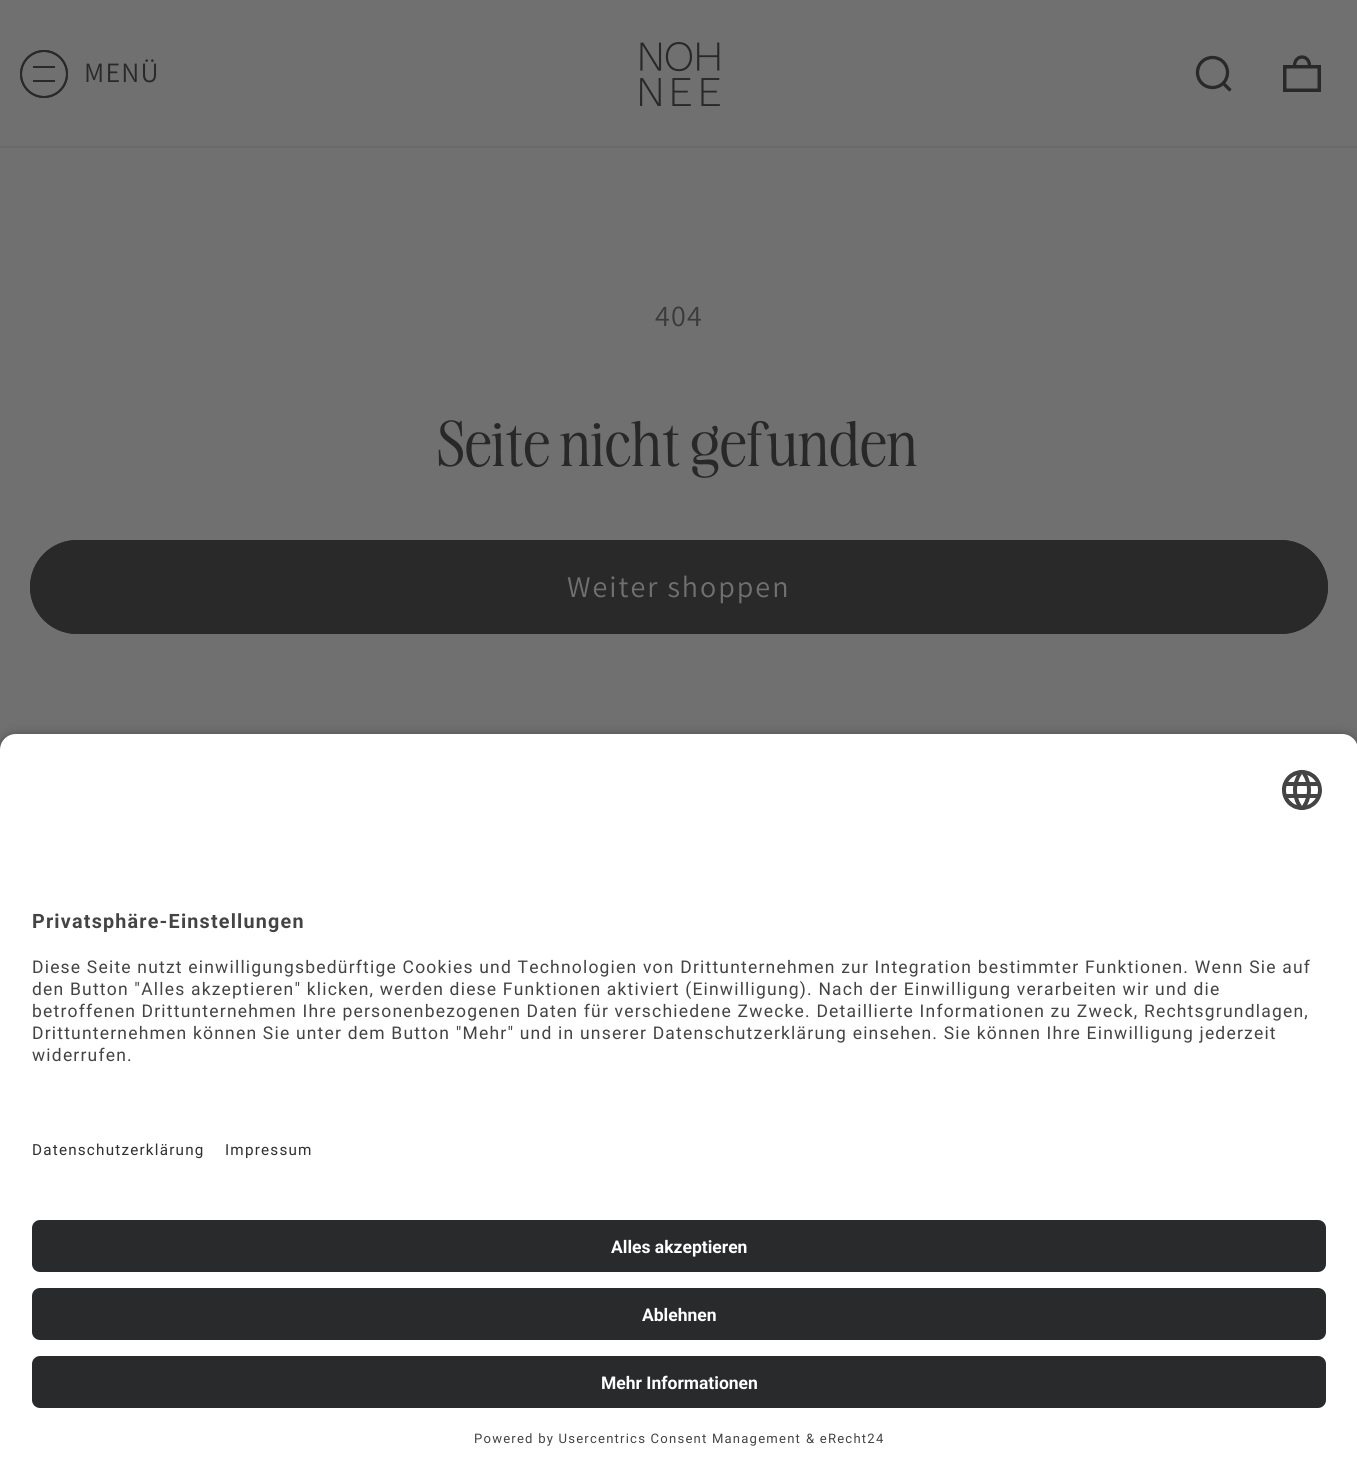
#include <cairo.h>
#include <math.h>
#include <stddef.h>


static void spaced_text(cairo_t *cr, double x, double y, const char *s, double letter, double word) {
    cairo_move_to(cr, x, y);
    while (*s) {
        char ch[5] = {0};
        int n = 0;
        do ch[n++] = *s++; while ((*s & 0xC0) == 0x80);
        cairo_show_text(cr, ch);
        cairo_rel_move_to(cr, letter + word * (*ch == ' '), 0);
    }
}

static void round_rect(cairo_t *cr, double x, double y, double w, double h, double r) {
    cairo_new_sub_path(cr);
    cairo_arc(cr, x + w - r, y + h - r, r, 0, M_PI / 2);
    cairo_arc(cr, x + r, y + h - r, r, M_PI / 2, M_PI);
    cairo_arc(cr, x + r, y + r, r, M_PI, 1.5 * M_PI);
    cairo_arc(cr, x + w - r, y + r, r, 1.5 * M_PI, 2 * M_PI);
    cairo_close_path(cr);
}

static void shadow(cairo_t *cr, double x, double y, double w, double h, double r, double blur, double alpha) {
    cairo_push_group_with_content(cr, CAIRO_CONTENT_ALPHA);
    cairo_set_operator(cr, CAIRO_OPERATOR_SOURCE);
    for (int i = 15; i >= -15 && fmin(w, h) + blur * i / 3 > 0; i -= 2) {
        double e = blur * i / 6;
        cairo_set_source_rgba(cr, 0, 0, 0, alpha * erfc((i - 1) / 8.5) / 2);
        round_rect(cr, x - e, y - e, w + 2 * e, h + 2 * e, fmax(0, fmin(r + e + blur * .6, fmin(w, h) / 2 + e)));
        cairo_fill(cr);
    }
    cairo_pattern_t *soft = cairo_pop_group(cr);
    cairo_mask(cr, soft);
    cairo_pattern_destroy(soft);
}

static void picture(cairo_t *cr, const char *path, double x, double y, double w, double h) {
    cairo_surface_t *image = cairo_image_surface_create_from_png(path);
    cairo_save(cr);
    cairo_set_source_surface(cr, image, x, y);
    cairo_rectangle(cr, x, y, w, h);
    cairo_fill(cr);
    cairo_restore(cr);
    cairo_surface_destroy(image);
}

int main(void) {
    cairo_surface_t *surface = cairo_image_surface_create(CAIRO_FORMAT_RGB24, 1357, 1480);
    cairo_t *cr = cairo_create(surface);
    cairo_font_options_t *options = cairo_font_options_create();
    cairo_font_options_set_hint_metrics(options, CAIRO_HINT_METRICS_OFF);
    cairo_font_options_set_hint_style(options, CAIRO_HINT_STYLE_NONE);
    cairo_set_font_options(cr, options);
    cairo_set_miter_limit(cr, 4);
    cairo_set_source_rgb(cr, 0.439, 0.439, 0.439);
    cairo_paint(cr);
    cairo_set_source_rgb(cr, 0.416, 0.416, 0.416);
    cairo_rectangle(cr, 0, 146, 1357, 2);
    cairo_fill(cr);
    cairo_set_source_rgb(cr, 0.161, 0.161, 0.161);
    cairo_rectangle(cr, 33, 66, 22, 2);
    cairo_fill(cr);
    cairo_rectangle(cr, 33, 80, 22, 2);
    cairo_fill(cr);
    cairo_arc(cr, 44, 74, 23, 0, 2 * M_PI);
    cairo_stroke(cr);
    cairo_arc(cr, 44, 74, 23, 0, 2 * M_PI);
    cairo_stroke(cr);
    cairo_select_font_face(cr, "Assistant", CAIRO_FONT_SLANT_NORMAL, CAIRO_FONT_WEIGHT_NORMAL);
    cairo_set_font_size(cr, 28);
    spaced_text(cr, 84, 82, "MENÜ", 1.2, 0);
    picture(cr, "img1.png", 640, 42, 80, 64);
    cairo_new_path(cr);
    cairo_move_to(cr, 1223.5, 83.5);
    cairo_line_to(cr, 1230.5, 90.5);
    cairo_move_to(cr, 1212.5, 87.5);
    cairo_curve_to(cr, 1204, 87.5, 1197.5, 81, 1197.5, 72.5);
    cairo_curve_to(cr, 1197.5, 64, 1204, 57.5, 1212.5, 57.5);
    cairo_curve_to(cr, 1221, 57.5, 1227.5, 64, 1227.5, 72.5);
    cairo_curve_to(cr, 1227.5, 81, 1221, 87.5, 1212.5, 87.5);
    cairo_close_path(cr);
    cairo_set_line_width(cr, 3.3);
    cairo_stroke(cr);
    cairo_rectangle(cr, 1284.75, 66.75, 34.5, 23.5);
    cairo_set_line_width(cr, 3.5);
    cairo_stroke(cr);
    cairo_new_path(cr);
    cairo_move_to(cr, 1309.5, 66);
    cairo_curve_to(cr, 1309.5, 54, 1294.5, 54, 1294.5, 66);
    cairo_set_line_width(cr, 3.3);
    cairo_stroke(cr);
    cairo_set_font_size(cr, 30);
    cairo_set_source_rgb(cr, 0.227, 0.227, 0.227);
    spaced_text(cr, 655, 326, "404", 1.2, 0);
    picture(cr, "img2.png", 438, 420, 479, 58);
    cairo_set_source_rgb(cr, 0.161, 0.161, 0.161);
    round_rect(cr, 30, 540, 1298, 94, 47);
    cairo_fill(cr);
    round_rect(cr, 31, 541, 1296, 92, 46);
    cairo_set_line_width(cr, 2);
    cairo_stroke(cr);
    cairo_set_source_rgb(cr, 0.439, 0.439, 0.439);
    spaced_text(cr, 567, 597, "Weiter shoppen", 2, 0);
    cairo_set_source_rgb(cr, 0, 0, 0);
    shadow(cr, 0, 740, 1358, 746, 16, 7, 0.8);
    cairo_set_source_rgb(cr, 1, 1, 1);
    cairo_new_path(cr);
    cairo_move_to(cr, 16, 734);
    cairo_line_to(cr, 1342, 734);
    cairo_curve_to(cr, 1351, 734, 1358, 741, 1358, 750);
    cairo_line_to(cr, 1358, 1106);
    cairo_line_to(cr, 0, 1106);
    cairo_line_to(cr, 0, 750);
    cairo_curve_to(cr, 0, 741, 7, 734, 16, 734);
    cairo_close_path(cr);
    cairo_fill(cr);
    picture(cr, "img3.png", 1282, 770, 40, 40);
    cairo_select_font_face(cr, "Roboto", CAIRO_FONT_SLANT_NORMAL, CAIRO_FONT_WEIGHT_BOLD);
    cairo_set_font_size(cr, 19.75);
    cairo_set_source_rgb(cr, 0.267, 0.267, 0.267);
    spaced_text(cr, 32, 928, "Privatsphäre-Einstellungen", 1.2, 0);
    cairo_select_font_face(cr, "Roboto", CAIRO_FONT_SLANT_NORMAL, CAIRO_FONT_WEIGHT_NORMAL);
    cairo_set_font_size(cr, 17.5);
    spaced_text(cr, 32, 973, "Diese Seite nutzt einwilligungsbedürftige Cookies und Technologien von Drittunternehmen zur Integration bestimmter Funktionen. Wenn Sie auf", 1.2, 0);
    spaced_text(cr, 32, 995, "den Button \"Alles akzeptieren\" klicken, werden diese Funktionen aktiviert (Einwilligung). Nach der Einwilligung verarbeiten wir und die", 1.2, 0);
    spaced_text(cr, 32, 1017, "betroffenen Drittunternehmen Ihre personenbezogenen Daten für verschiedene Zwecke. Detaillierte Informationen zu Zweck, Rechtsgrundlagen,", 1.2, 0);
    spaced_text(cr, 32, 1039, "Drittunternehmen können Sie unter dem Button \"Mehr\" und in unserer Datenschutzerklärung einsehen. Sie können Ihre Einwilligung jederzeit", 1.2, 0);
    spaced_text(cr, 32, 1061, "widerrufen.", 1.2, 0);
    cairo_set_source_rgb(cr, 1, 1, 1);
    cairo_rectangle(cr, 0, 1106, 1357, 374);
    cairo_fill(cr);
    cairo_set_font_size(cr, 15.25);
    cairo_set_source_rgb(cr, 0.188, 0.188, 0.188);
    spaced_text(cr, 32, 1155, "Datenschutzerklärung", 1.2, 0);
    spaced_text(cr, 225, 1155, "Impressum", 1.2, 0);
    cairo_set_source_rgb(cr, 0.161, 0.165, 0.169);
    round_rect(cr, 32, 1220, 1294, 52, 8);
    cairo_fill(cr);
    cairo_select_font_face(cr, "Roboto", CAIRO_FONT_SLANT_NORMAL, CAIRO_FONT_WEIGHT_BOLD);
    cairo_set_font_size(cr, 17.5);
    cairo_set_source_rgb(cr, 1, 1, 1);
    cairo_move_to(cr, 611, 1253);
    cairo_show_text(cr, "Alles akzeptieren");
    cairo_set_source_rgb(cr, 0.161, 0.165, 0.169);
    round_rect(cr, 32, 1288, 1294, 52, 8);
    cairo_fill(cr);
    cairo_set_source_rgb(cr, 1, 1, 1);
    cairo_move_to(cr, 642, 1321);
    cairo_show_text(cr, "Ablehnen");
    cairo_set_source_rgb(cr, 0.161, 0.165, 0.169);
    round_rect(cr, 32, 1356, 1294, 52, 8);
    cairo_fill(cr);
    cairo_set_source_rgb(cr, 1, 1, 1);
    cairo_move_to(cr, 601, 1389);
    cairo_show_text(cr, "Mehr Informationen");
    cairo_select_font_face(cr, "Roboto", CAIRO_FONT_SLANT_NORMAL, CAIRO_FONT_WEIGHT_NORMAL);
    cairo_set_font_size(cr, 13.1);
    cairo_set_source_rgb(cr, 0.267, 0.267, 0.267);
    spaced_text(cr, 474, 1443, "Powered by Usercentrics Consent Management", 1.2, 0);
    spaced_text(cr, 806, 1443, "& eRecht24", 1.2, 0);
    cairo_surface_write_to_png(surface, "page.png");
    cairo_font_options_destroy(options);
    cairo_destroy(cr);
    cairo_surface_destroy(surface);
    return 0;
}
